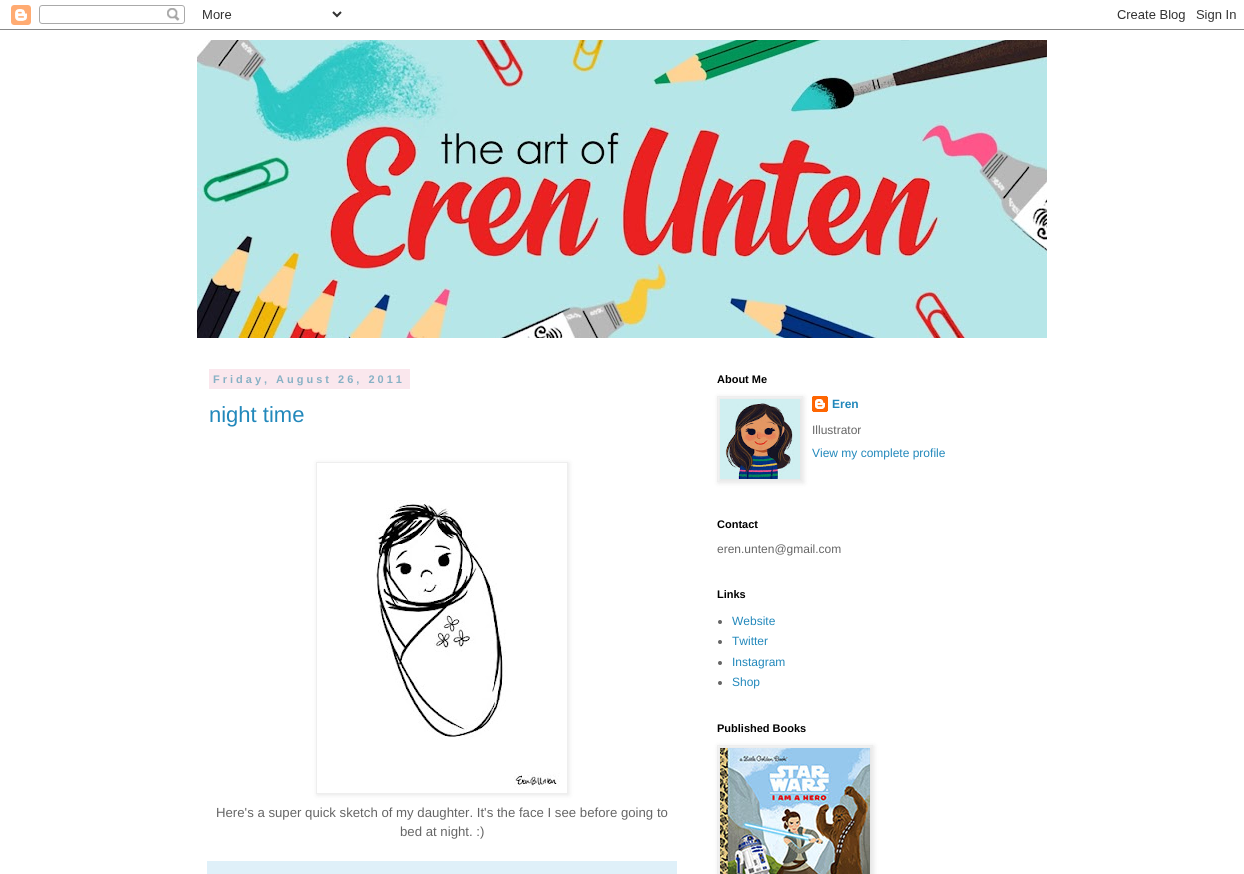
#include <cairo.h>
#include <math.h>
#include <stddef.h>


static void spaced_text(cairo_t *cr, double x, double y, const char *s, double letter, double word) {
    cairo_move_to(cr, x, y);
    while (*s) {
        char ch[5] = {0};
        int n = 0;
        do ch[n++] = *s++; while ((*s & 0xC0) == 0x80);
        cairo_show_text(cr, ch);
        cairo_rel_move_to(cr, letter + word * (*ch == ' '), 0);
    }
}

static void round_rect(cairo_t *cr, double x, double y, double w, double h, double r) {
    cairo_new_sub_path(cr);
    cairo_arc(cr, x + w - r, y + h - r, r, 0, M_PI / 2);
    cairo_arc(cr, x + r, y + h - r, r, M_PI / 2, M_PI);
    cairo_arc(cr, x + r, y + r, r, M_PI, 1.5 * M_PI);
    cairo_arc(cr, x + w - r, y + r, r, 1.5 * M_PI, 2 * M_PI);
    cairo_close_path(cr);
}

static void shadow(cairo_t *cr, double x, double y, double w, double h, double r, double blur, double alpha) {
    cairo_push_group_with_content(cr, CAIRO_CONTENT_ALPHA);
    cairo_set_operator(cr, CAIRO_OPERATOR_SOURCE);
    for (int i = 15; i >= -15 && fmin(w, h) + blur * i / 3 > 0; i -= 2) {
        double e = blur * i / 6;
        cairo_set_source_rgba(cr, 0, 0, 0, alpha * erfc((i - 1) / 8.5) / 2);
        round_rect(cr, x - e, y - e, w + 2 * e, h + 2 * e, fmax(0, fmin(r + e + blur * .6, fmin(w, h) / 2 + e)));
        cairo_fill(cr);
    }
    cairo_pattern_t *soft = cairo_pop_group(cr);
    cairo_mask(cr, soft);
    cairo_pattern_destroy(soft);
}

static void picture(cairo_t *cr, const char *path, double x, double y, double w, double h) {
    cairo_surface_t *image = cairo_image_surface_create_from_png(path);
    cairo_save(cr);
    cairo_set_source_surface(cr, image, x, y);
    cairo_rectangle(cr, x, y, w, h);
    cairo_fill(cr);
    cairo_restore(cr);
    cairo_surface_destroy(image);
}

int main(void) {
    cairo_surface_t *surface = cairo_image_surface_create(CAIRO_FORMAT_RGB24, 1244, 874);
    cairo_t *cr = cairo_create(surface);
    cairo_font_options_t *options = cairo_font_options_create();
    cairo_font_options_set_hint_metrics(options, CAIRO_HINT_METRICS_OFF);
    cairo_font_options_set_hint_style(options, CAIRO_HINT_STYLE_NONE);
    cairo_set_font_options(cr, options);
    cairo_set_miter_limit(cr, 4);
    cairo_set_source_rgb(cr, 1, 1, 1);
    cairo_paint(cr);
    picture(cr, "img1.png", 0, 5, 1244, 25);
    picture(cr, "img2.png", 197, 40, 850, 298);
    cairo_set_source_rgb(cr, 0.98, 0.906, 0.929);
    cairo_rectangle(cr, 209, 369, 201, 20);
    cairo_fill(cr);
    cairo_select_font_face(cr, "Liberation Sans", CAIRO_FONT_SLANT_NORMAL, CAIRO_FONT_WEIGHT_BOLD);
    cairo_set_font_size(cr, 11);
    cairo_set_source_rgb(cr, 0.529, 0.694, 0.773);
    spaced_text(cr, 213, 383, "Friday, August 26, 2011", 3, 0);
    cairo_select_font_face(cr, "Liberation Sans", CAIRO_FONT_SLANT_NORMAL, CAIRO_FONT_WEIGHT_NORMAL);
    cairo_set_font_size(cr, 22);
    cairo_set_source_rgb(cr, 0.133, 0.533, 0.733);
    cairo_move_to(cr, 209, 422);
    cairo_show_text(cr, "night time");
    cairo_save(cr);
    cairo_set_fill_rule(cr, CAIRO_FILL_RULE_EVEN_ODD);
    cairo_new_path(cr);
    cairo_move_to(cr, 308, 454);
    cairo_line_to(cr, 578, 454);
    cairo_line_to(cr, 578, 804);
    cairo_line_to(cr, 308, 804);
    cairo_close_path(cr);
    cairo_move_to(cr, 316, 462);
    cairo_line_to(cr, 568, 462);
    cairo_line_to(cr, 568, 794);
    cairo_line_to(cr, 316, 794);
    cairo_close_path(cr);
    cairo_clip(cr);
    cairo_set_source_rgb(cr, 0, 0, 0);
    shadow(cr, 317, 463, 252, 332, 0, 2.5, 0.1);
    cairo_restore(cr);
    cairo_rectangle(cr, 316.5, 462.5, 251, 331);
    cairo_set_source_rgb(cr, 0.933, 0.933, 0.933);
    cairo_set_line_width(cr, 1);
    cairo_stroke(cr);
    picture(cr, "img3.png", 375, 500, 185, 288);
    cairo_set_font_size(cr, 13.2);
    cairo_set_source_rgb(cr, 0.4, 0.4, 0.4);
    cairo_move_to(cr, 216, 817);
    cairo_show_text(cr, "Here's a super quick sketch of my daughter. It's the face I see before going to");
    cairo_move_to(cr, 400, 836);
    cairo_show_text(cr, "bed at night. :)");
    cairo_set_source_rgb(cr, 0.875, 0.941, 0.973);
    cairo_rectangle(cr, 207, 861, 470, 13);
    cairo_fill(cr);
    cairo_select_font_face(cr, "Liberation Sans", CAIRO_FONT_SLANT_NORMAL, CAIRO_FONT_WEIGHT_BOLD);
    cairo_set_font_size(cr, 11);
    cairo_set_source_rgb(cr, 0, 0, 0);
    cairo_move_to(cr, 717, 383);
    cairo_show_text(cr, "About Me");
    picture(cr, "img5.png", 812, 396, 16, 16);
    cairo_set_source_rgb(cr, 0, 0, 0);
    shadow(cr, 718, 397, 86, 86, 0, 2.5, 0.1);
    cairo_rectangle(cr, 717.5, 396.5, 85, 85);
    cairo_set_source_rgb(cr, 0.933, 0.933, 0.933);
    cairo_stroke(cr);
    picture(cr, "img4.png", 720, 399, 80, 80);
    cairo_set_font_size(cr, 12);
    cairo_set_source_rgb(cr, 0.133, 0.533, 0.733);
    cairo_move_to(cr, 832, 408);
    cairo_show_text(cr, "Eren");
    cairo_select_font_face(cr, "Liberation Sans", CAIRO_FONT_SLANT_NORMAL, CAIRO_FONT_WEIGHT_NORMAL);
    cairo_set_source_rgb(cr, 0.4, 0.4, 0.4);
    cairo_move_to(cr, 812, 434);
    cairo_show_text(cr, "Illustrator");
    cairo_set_source_rgb(cr, 0.133, 0.533, 0.733);
    cairo_move_to(cr, 812, 457);
    cairo_show_text(cr, "View my complete profile");
    cairo_select_font_face(cr, "Liberation Sans", CAIRO_FONT_SLANT_NORMAL, CAIRO_FONT_WEIGHT_BOLD);
    cairo_set_font_size(cr, 11);
    cairo_set_source_rgb(cr, 0, 0, 0);
    cairo_move_to(cr, 717, 528);
    cairo_show_text(cr, "Contact");
    cairo_select_font_face(cr, "Liberation Sans", CAIRO_FONT_SLANT_NORMAL, CAIRO_FONT_WEIGHT_NORMAL);
    cairo_set_font_size(cr, 12);
    cairo_set_source_rgb(cr, 0.4, 0.4, 0.4);
    cairo_move_to(cr, 717, 553);
    cairo_show_text(cr, "eren.unten@gmail.com");
    cairo_select_font_face(cr, "Liberation Sans", CAIRO_FONT_SLANT_NORMAL, CAIRO_FONT_WEIGHT_BOLD);
    cairo_set_font_size(cr, 11);
    cairo_set_source_rgb(cr, 0, 0, 0);
    cairo_move_to(cr, 717, 598);
    cairo_show_text(cr, "Links");
    cairo_set_source_rgb(cr, 0.4, 0.4, 0.4);
    cairo_new_path(cr);
    cairo_arc(cr, 720, 622, 2, 0, 2 * M_PI);
    cairo_fill(cr);
    cairo_select_font_face(cr, "Liberation Sans", CAIRO_FONT_SLANT_NORMAL, CAIRO_FONT_WEIGHT_NORMAL);
    cairo_set_font_size(cr, 12);
    cairo_set_source_rgb(cr, 0.133, 0.533, 0.733);
    cairo_move_to(cr, 732, 625);
    cairo_show_text(cr, "Website");
    cairo_set_source_rgb(cr, 0.4, 0.4, 0.4);
    cairo_new_path(cr);
    cairo_arc(cr, 720, 642, 2, 0, 2 * M_PI);
    cairo_fill(cr);
    cairo_set_source_rgb(cr, 0.133, 0.533, 0.733);
    cairo_move_to(cr, 732, 645);
    cairo_show_text(cr, "Twitter");
    cairo_set_source_rgb(cr, 0.4, 0.4, 0.4);
    cairo_new_path(cr);
    cairo_arc(cr, 720, 663, 2, 0, 2 * M_PI);
    cairo_fill(cr);
    cairo_set_source_rgb(cr, 0.133, 0.533, 0.733);
    cairo_move_to(cr, 732, 666);
    cairo_show_text(cr, "Instagram");
    cairo_set_source_rgb(cr, 0.4, 0.4, 0.4);
    cairo_new_path(cr);
    cairo_arc(cr, 720, 683, 2, 0, 2 * M_PI);
    cairo_fill(cr);
    cairo_set_source_rgb(cr, 0.133, 0.533, 0.733);
    cairo_move_to(cr, 732, 686);
    cairo_show_text(cr, "Shop");
    cairo_select_font_face(cr, "Liberation Sans", CAIRO_FONT_SLANT_NORMAL, CAIRO_FONT_WEIGHT_BOLD);
    cairo_set_font_size(cr, 11);
    cairo_set_source_rgb(cr, 0, 0, 0);
    cairo_move_to(cr, 717, 732);
    cairo_show_text(cr, "Published Books");
    cairo_set_source_rgb(cr, 0, 0, 0);
    shadow(cr, 718, 746, 156, 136, 0, 2.5, 0.1);
    cairo_rectangle(cr, 717.5, 745.5, 155, 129);
    cairo_set_source_rgb(cr, 0.933, 0.933, 0.933);
    cairo_stroke(cr);
    picture(cr, "img6.png", 720, 748, 150, 126);
    cairo_surface_write_to_png(surface, "page.png");
    cairo_font_options_destroy(options);
    cairo_destroy(cr);
    cairo_surface_destroy(surface);
    return 0;
}
